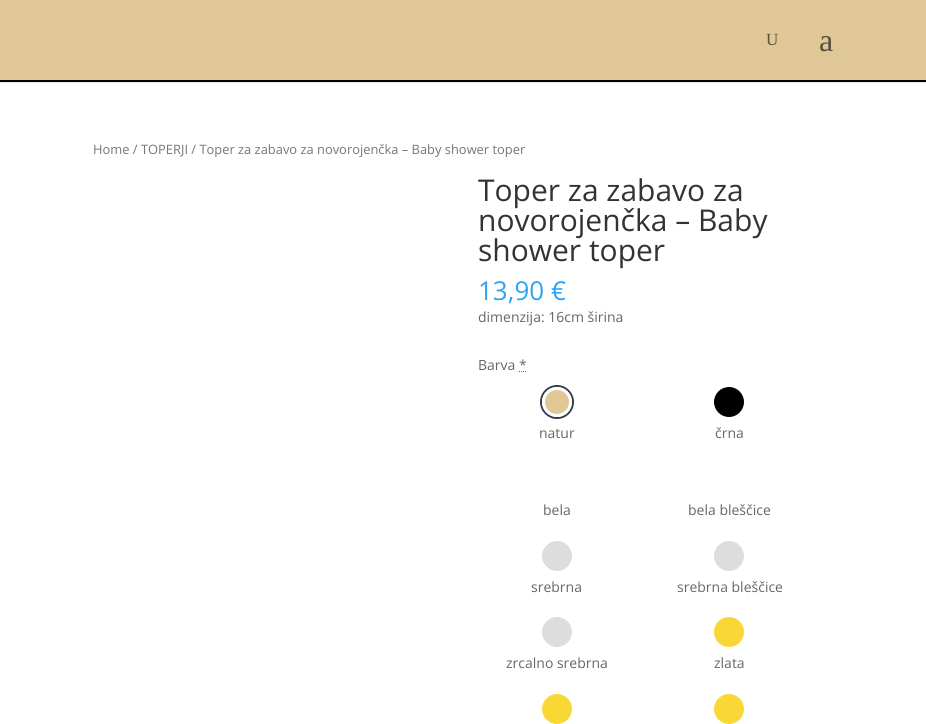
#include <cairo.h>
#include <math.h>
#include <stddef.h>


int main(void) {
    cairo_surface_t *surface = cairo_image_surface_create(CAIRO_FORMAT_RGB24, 926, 724);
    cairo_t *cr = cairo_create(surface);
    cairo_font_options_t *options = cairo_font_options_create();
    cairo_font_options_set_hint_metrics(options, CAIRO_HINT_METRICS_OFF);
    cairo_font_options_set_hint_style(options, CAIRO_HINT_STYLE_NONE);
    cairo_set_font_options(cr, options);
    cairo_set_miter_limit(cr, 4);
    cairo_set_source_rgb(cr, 1, 1, 1);
    cairo_paint(cr);
    cairo_set_source_rgb(cr, 0.902, 0.902, 0.902);
    cairo_rectangle(cr, 0, 82, 926, 1);
    cairo_fill(cr);
    cairo_set_source_rgb(cr, 0.878, 0.784, 0.588);
    cairo_rectangle(cr, 0, 0, 926, 80);
    cairo_fill(cr);
    cairo_set_source_rgb(cr, 0, 0, 0);
    cairo_rectangle(cr, 0, 80, 926, 2);
    cairo_fill(cr);
    cairo_select_font_face(cr, "Liberation Serif", CAIRO_FONT_SLANT_NORMAL, CAIRO_FONT_WEIGHT_NORMAL);
    cairo_set_font_size(cr, 17);
    cairo_set_source_rgb(cr, 0.353, 0.314, 0.235);
    cairo_move_to(cr, 766, 45);
    cairo_show_text(cr, "U");
    cairo_set_font_size(cr, 32);
    cairo_move_to(cr, 819, 51);
    cairo_show_text(cr, "a");
    cairo_select_font_face(cr, "Open Sans", CAIRO_FONT_SLANT_NORMAL, CAIRO_FONT_WEIGHT_NORMAL);
    cairo_set_font_size(cr, 12.9);
    cairo_set_source_rgb(cr, 0.463, 0.463, 0.463);
    cairo_move_to(cr, 93, 154);
    cairo_show_text(cr, "Home / TOPERJI / Toper za zabavo za novorojenčka – Baby shower toper");
    cairo_set_font_size(cr, 30);
    cairo_set_source_rgb(cr, 0.2, 0.2, 0.2);
    cairo_move_to(cr, 478, 201);
    cairo_show_text(cr, "Toper za zabavo za");
    cairo_move_to(cr, 478, 231);
    cairo_show_text(cr, "novorojenčka – Baby");
    cairo_move_to(cr, 478, 261);
    cairo_show_text(cr, "shower toper");
    cairo_set_font_size(cr, 26);
    cairo_set_source_rgb(cr, 0.18, 0.639, 0.949);
    cairo_move_to(cr, 478, 300);
    cairo_show_text(cr, "13,90 €");
    cairo_set_font_size(cr, 14);
    cairo_set_source_rgb(cr, 0.4, 0.4, 0.4);
    cairo_move_to(cr, 478, 322);
    cairo_show_text(cr, "dimenzija: 16cm širina");
    cairo_move_to(cr, 478, 370);
    cairo_show_text(cr, "Barva *");
    cairo_new_path(cr);
    cairo_move_to(cr, 519, 371.5);
    cairo_line_to(cr, 526.5, 371.5);
    cairo_set_line_width(cr, 1);
    cairo_set_dash(cr, (double[]){1, 1}, 2, 0);
    cairo_stroke(cr);
    cairo_arc(cr, 557, 402, 16, 0, 2 * M_PI);
    cairo_set_source_rgb(cr, 0.208, 0.235, 0.306);
    cairo_set_line_width(cr, 2);
    cairo_set_dash(cr, NULL, 0, 0);
    cairo_stroke(cr);
    cairo_set_source_rgb(cr, 0.878, 0.784, 0.588);
    cairo_arc(cr, 557, 402, 13.5, 0, 2 * M_PI);
    cairo_fill_preserve(cr);
    cairo_set_source_rgb(cr, 1, 1, 1);
    cairo_set_line_width(cr, 3);
    cairo_stroke(cr);
    cairo_set_source_rgb(cr, 0.4, 0.4, 0.4);
    cairo_move_to(cr, 539, 438);
    cairo_show_text(cr, "natur");
    cairo_set_source_rgb(cr, 0, 0, 0);
    cairo_new_path(cr);
    cairo_arc(cr, 729, 402, 15, 0, 2 * M_PI);
    cairo_fill(cr);
    cairo_set_source_rgb(cr, 0.4, 0.4, 0.4);
    cairo_move_to(cr, 715, 438);
    cairo_show_text(cr, "črna");
    cairo_move_to(cr, 543, 515);
    cairo_show_text(cr, "bela");
    cairo_move_to(cr, 688, 515);
    cairo_show_text(cr, "bela bleščice");
    cairo_set_source_rgb(cr, 0.867, 0.867, 0.867);
    cairo_new_path(cr);
    cairo_arc(cr, 557, 556, 15, 0, 2 * M_PI);
    cairo_fill(cr);
    cairo_set_source_rgb(cr, 0.4, 0.4, 0.4);
    cairo_move_to(cr, 531, 592);
    cairo_show_text(cr, "srebrna");
    cairo_set_source_rgb(cr, 0.867, 0.867, 0.867);
    cairo_new_path(cr);
    cairo_arc(cr, 729, 556, 15, 0, 2 * M_PI);
    cairo_fill(cr);
    cairo_set_source_rgb(cr, 0.4, 0.4, 0.4);
    cairo_move_to(cr, 677, 592);
    cairo_show_text(cr, "srebrna bleščice");
    cairo_set_source_rgb(cr, 0.867, 0.867, 0.867);
    cairo_new_path(cr);
    cairo_arc(cr, 557, 632, 15, 0, 2 * M_PI);
    cairo_fill(cr);
    cairo_set_source_rgb(cr, 0.4, 0.4, 0.4);
    cairo_move_to(cr, 506, 668);
    cairo_show_text(cr, "zrcalno srebrna");
    cairo_set_source_rgb(cr, 0.973, 0.843, 0.204);
    cairo_new_path(cr);
    cairo_arc(cr, 729, 632, 15, 0, 2 * M_PI);
    cairo_fill(cr);
    cairo_set_source_rgb(cr, 0.4, 0.4, 0.4);
    cairo_move_to(cr, 714, 668);
    cairo_show_text(cr, "zlata");
    cairo_set_source_rgb(cr, 0.973, 0.843, 0.204);
    cairo_new_path(cr);
    cairo_arc(cr, 557, 709, 15, 0, 2 * M_PI);
    cairo_fill(cr);
    cairo_arc(cr, 729, 709, 15, 0, 2 * M_PI);
    cairo_fill(cr);
    cairo_surface_write_to_png(surface, "page.png");
    cairo_font_options_destroy(options);
    cairo_destroy(cr);
    cairo_surface_destroy(surface);
    return 0;
}
